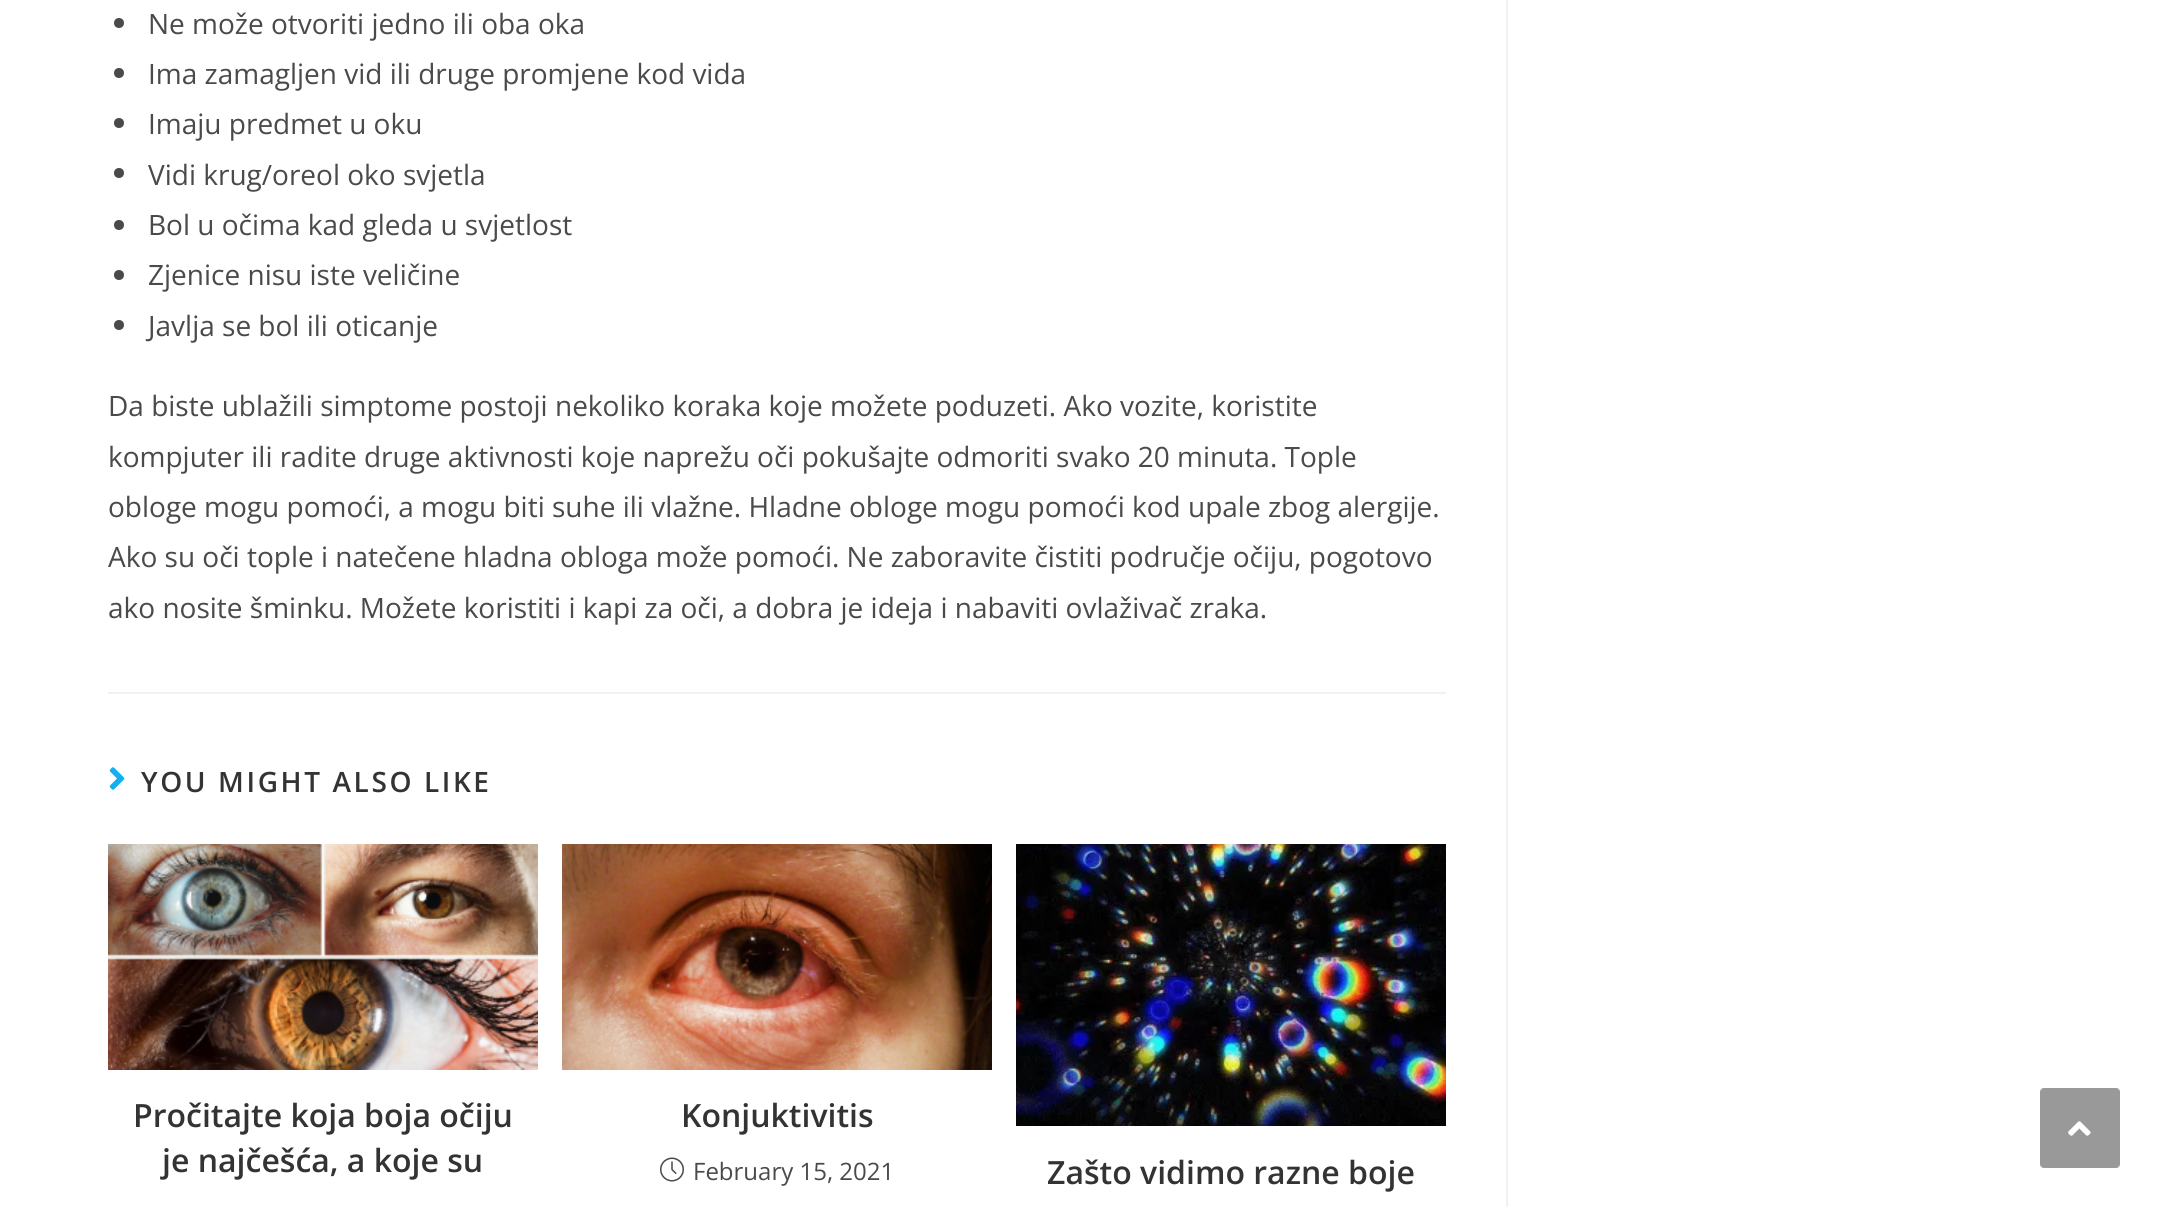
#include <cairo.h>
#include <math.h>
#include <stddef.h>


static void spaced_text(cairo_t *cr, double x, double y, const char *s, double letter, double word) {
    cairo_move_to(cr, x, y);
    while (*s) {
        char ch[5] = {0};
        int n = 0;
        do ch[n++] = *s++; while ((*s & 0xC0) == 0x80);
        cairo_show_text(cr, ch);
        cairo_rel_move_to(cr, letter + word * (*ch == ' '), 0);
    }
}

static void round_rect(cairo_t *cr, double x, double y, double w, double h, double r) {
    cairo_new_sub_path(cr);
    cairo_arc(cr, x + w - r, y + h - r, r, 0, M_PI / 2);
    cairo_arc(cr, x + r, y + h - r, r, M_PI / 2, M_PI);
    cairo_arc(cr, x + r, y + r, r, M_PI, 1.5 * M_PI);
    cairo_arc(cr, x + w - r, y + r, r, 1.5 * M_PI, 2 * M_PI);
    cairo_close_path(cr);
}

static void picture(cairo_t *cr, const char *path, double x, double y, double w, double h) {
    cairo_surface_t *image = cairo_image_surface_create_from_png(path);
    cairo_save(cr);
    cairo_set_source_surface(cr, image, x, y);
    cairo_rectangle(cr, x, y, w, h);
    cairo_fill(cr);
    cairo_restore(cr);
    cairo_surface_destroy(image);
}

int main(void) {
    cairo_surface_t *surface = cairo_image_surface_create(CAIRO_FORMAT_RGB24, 2160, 1207);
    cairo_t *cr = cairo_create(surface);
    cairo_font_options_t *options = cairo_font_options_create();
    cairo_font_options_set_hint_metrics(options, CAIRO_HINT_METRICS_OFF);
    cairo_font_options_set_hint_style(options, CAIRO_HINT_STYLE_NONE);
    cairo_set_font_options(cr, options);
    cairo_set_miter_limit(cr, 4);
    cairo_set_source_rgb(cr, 1, 1, 1);
    cairo_paint(cr);
    cairo_set_source_rgb(cr, 0.945, 0.945, 0.945);
    cairo_rectangle(cr, 1506, 0, 2, 1207);
    cairo_fill(cr);
    cairo_set_source_rgb(cr, 0.29, 0.29, 0.29);
    cairo_arc(cr, 119, 23, 5, 0, 2 * M_PI);
    cairo_fill(cr);
    cairo_select_font_face(cr, "Open Sans", CAIRO_FONT_SLANT_NORMAL, CAIRO_FONT_WEIGHT_NORMAL);
    cairo_set_font_size(cr, 28);
    cairo_move_to(cr, 148, 34);
    cairo_show_text(cr, "Ne može otvoriti jedno ili oba oka");
    cairo_new_path(cr);
    cairo_arc(cr, 119, 73, 5, 0, 2 * M_PI);
    cairo_fill(cr);
    cairo_move_to(cr, 148, 84);
    cairo_show_text(cr, "Ima zamagljen vid ili druge promjene kod vida");
    cairo_new_path(cr);
    cairo_arc(cr, 119, 123, 5, 0, 2 * M_PI);
    cairo_fill(cr);
    cairo_move_to(cr, 148, 134);
    cairo_show_text(cr, "Imaju predmet u oku");
    cairo_new_path(cr);
    cairo_arc(cr, 119, 173, 5, 0, 2 * M_PI);
    cairo_fill(cr);
    cairo_move_to(cr, 148, 185);
    cairo_show_text(cr, "Vidi krug/oreol oko svjetla");
    cairo_new_path(cr);
    cairo_arc(cr, 119, 225, 5, 0, 2 * M_PI);
    cairo_fill(cr);
    cairo_move_to(cr, 148, 235);
    cairo_show_text(cr, "Bol u očima kad gleda u svjetlost");
    cairo_new_path(cr);
    cairo_arc(cr, 119, 275, 5, 0, 2 * M_PI);
    cairo_fill(cr);
    cairo_move_to(cr, 148, 285);
    cairo_show_text(cr, "Zjenice nisu iste veličine");
    cairo_new_path(cr);
    cairo_arc(cr, 119, 325, 5, 0, 2 * M_PI);
    cairo_fill(cr);
    cairo_move_to(cr, 148, 336);
    cairo_show_text(cr, "Javlja se bol ili oticanje");
    cairo_move_to(cr, 108, 416);
    cairo_show_text(cr, "Da biste ublažili simptome postoji nekoliko koraka koje možete poduzeti. Ako vozite, koristite");
    cairo_move_to(cr, 108, 467);
    cairo_show_text(cr, "kompjuter ili radite druge aktivnosti koje naprežu oči pokušajte odmoriti svako 20 minuta. Tople");
    cairo_move_to(cr, 108, 517);
    cairo_show_text(cr, "obloge mogu pomoći, a mogu biti suhe ili vlažne. Hladne obloge mogu pomoći kod upale zbog alergije.");
    cairo_move_to(cr, 108, 567);
    cairo_show_text(cr, "Ako su oči tople i natečene hladna obloga može pomoći. Ne zaboravite čistiti područje očiju, pogotovo");
    cairo_move_to(cr, 108, 618);
    cairo_show_text(cr, "ako nosite šminku. Možete koristiti i kapi za oči, a dobra je ideja i nabaviti ovlaživač zraka.");
    cairo_set_source_rgb(cr, 0.945, 0.945, 0.945);
    cairo_rectangle(cr, 108, 692, 1338, 2);
    cairo_fill(cr);
    picture(cr, "img1.png", 109, 767, 16, 23);
    cairo_select_font_face(cr, "Open Sans SemiBold", CAIRO_FONT_SLANT_NORMAL, CAIRO_FONT_WEIGHT_NORMAL);
    cairo_set_source_rgb(cr, 0.2, 0.2, 0.2);
    spaced_text(cr, 141, 792, "YOU MIGHT ALSO LIKE", 2.6, 0);
    picture(cr, "img2.png", 108, 844, 430, 226);
    cairo_set_font_size(cr, 32);
    cairo_move_to(cr, 133, 1127);
    cairo_show_text(cr, "Pročitajte koja boja očiju");
    cairo_move_to(cr, 162, 1172);
    cairo_show_text(cr, "je najčešća, a koje su");
    picture(cr, "img3.png", 562, 844, 430, 226);
    cairo_move_to(cr, 681, 1127);
    cairo_show_text(cr, "Konjuktivitis");
    picture(cr, "img4.png", 660, 1157, 24, 25);
    cairo_select_font_face(cr, "Open Sans", CAIRO_FONT_SLANT_NORMAL, CAIRO_FONT_WEIGHT_NORMAL);
    cairo_set_font_size(cr, 24);
    cairo_set_source_rgb(cr, 0.29, 0.29, 0.29);
    cairo_move_to(cr, 693, 1180);
    cairo_show_text(cr, "February 15, 2021");
    picture(cr, "img5.png", 1016, 844, 430, 282);
    cairo_select_font_face(cr, "Open Sans SemiBold", CAIRO_FONT_SLANT_NORMAL, CAIRO_FONT_WEIGHT_NORMAL);
    cairo_set_font_size(cr, 32);
    cairo_set_source_rgb(cr, 0.2, 0.2, 0.2);
    cairo_move_to(cr, 1047, 1184);
    cairo_show_text(cr, "Zašto vidimo razne boje");
    cairo_set_source_rgb(cr, 0.6, 0.6, 0.6);
    round_rect(cr, 2040, 1088, 80, 80, 4);
    cairo_fill(cr);
    picture(cr, "img6.png", 2068, 1121, 23, 15);
    cairo_surface_write_to_png(surface, "page.png");
    cairo_font_options_destroy(options);
    cairo_destroy(cr);
    cairo_surface_destroy(surface);
    return 0;
}
